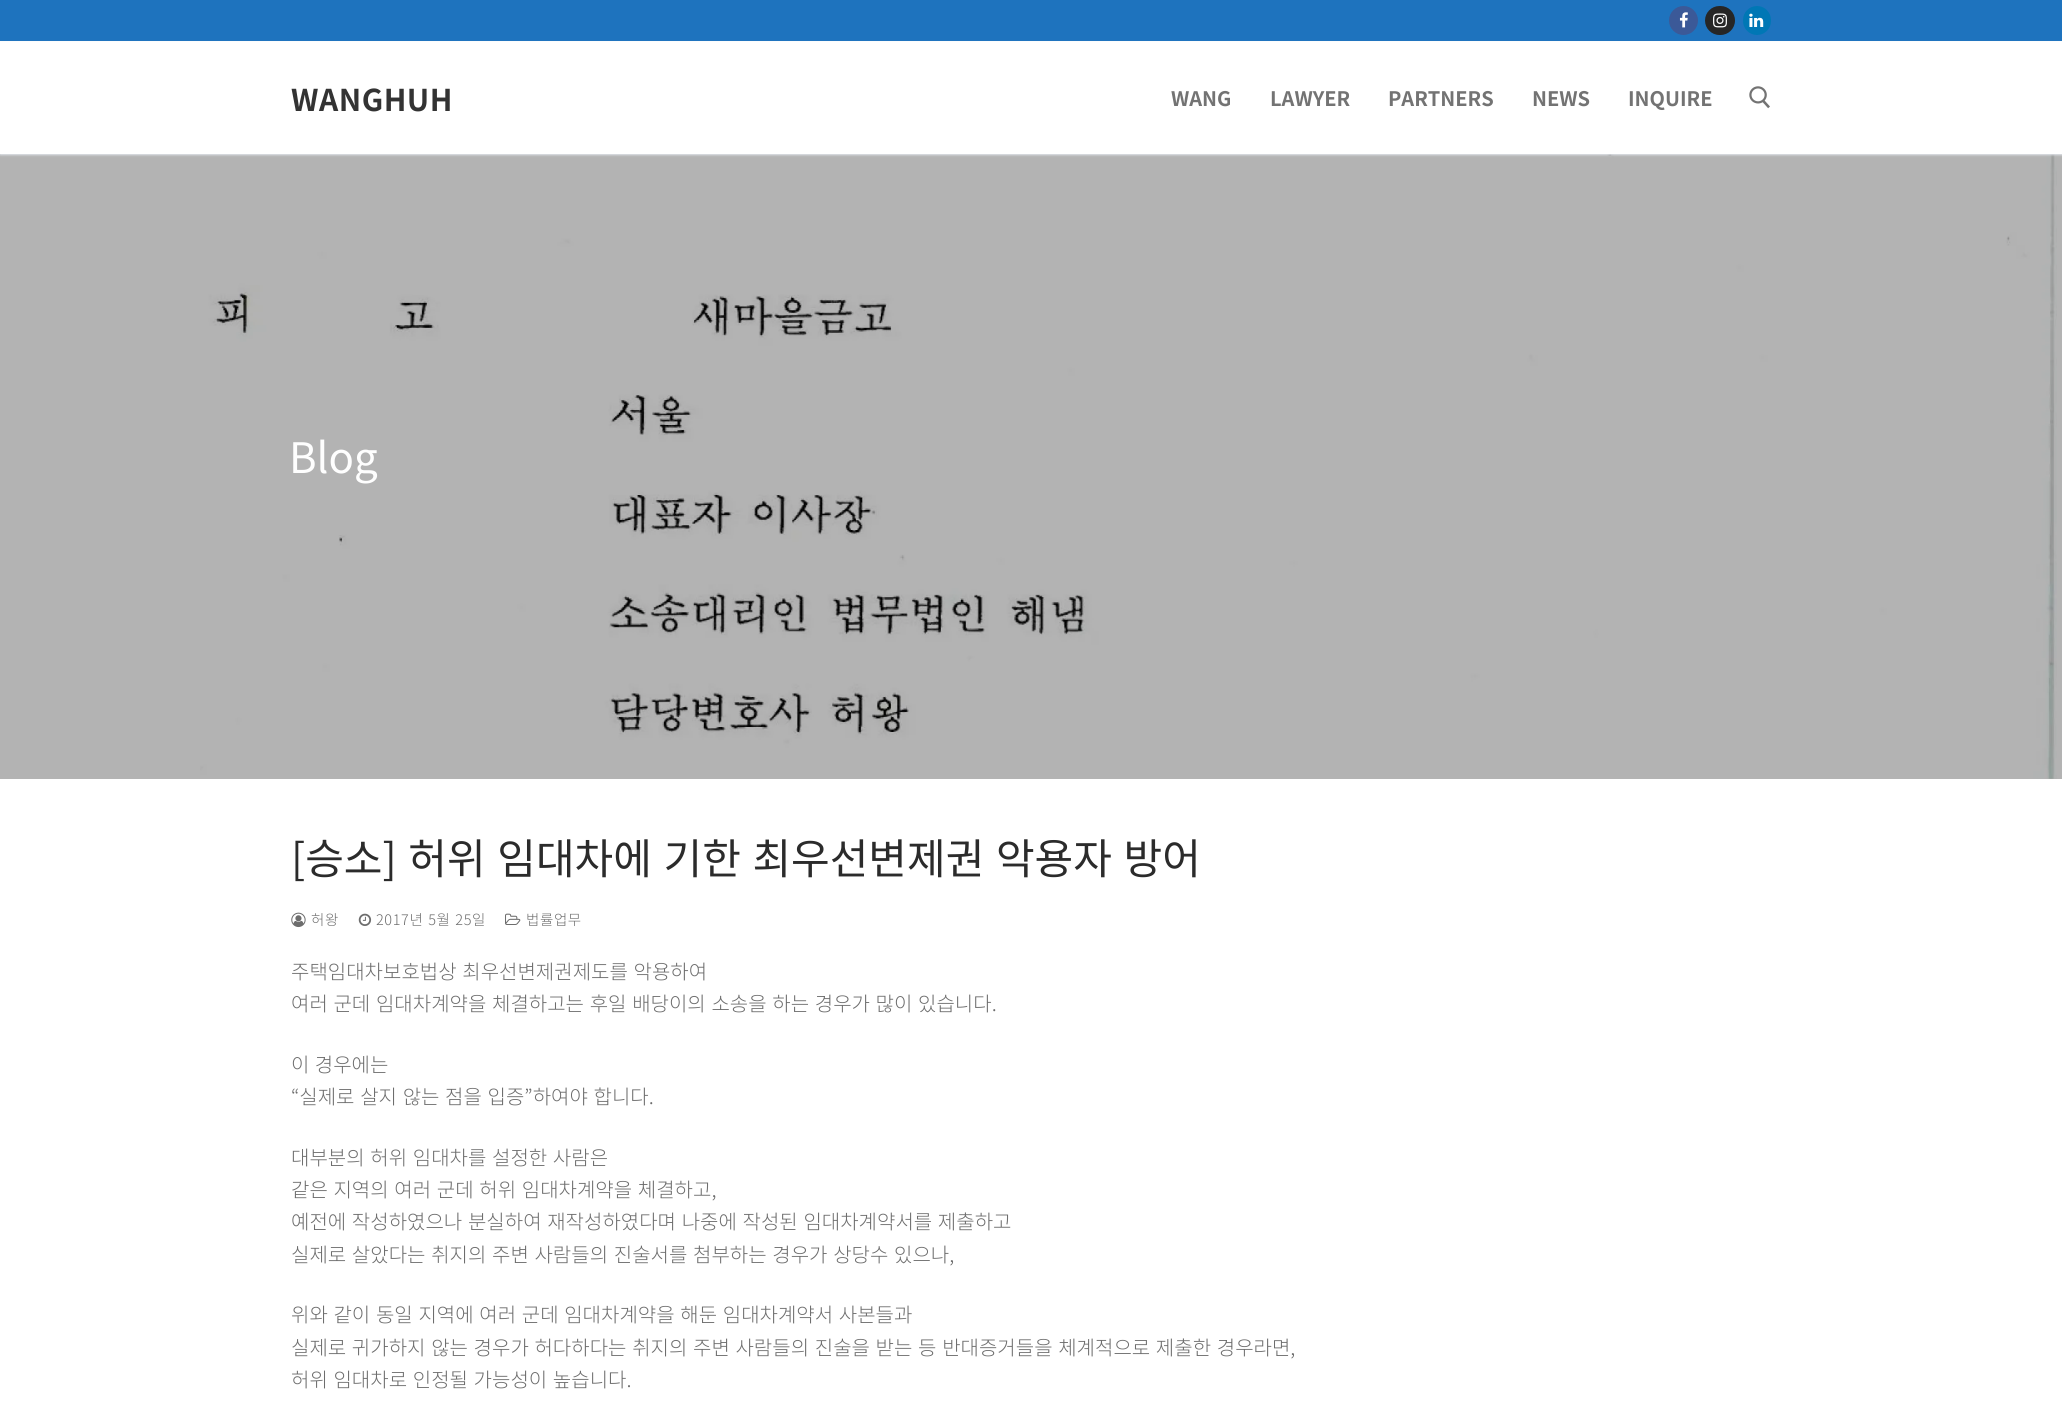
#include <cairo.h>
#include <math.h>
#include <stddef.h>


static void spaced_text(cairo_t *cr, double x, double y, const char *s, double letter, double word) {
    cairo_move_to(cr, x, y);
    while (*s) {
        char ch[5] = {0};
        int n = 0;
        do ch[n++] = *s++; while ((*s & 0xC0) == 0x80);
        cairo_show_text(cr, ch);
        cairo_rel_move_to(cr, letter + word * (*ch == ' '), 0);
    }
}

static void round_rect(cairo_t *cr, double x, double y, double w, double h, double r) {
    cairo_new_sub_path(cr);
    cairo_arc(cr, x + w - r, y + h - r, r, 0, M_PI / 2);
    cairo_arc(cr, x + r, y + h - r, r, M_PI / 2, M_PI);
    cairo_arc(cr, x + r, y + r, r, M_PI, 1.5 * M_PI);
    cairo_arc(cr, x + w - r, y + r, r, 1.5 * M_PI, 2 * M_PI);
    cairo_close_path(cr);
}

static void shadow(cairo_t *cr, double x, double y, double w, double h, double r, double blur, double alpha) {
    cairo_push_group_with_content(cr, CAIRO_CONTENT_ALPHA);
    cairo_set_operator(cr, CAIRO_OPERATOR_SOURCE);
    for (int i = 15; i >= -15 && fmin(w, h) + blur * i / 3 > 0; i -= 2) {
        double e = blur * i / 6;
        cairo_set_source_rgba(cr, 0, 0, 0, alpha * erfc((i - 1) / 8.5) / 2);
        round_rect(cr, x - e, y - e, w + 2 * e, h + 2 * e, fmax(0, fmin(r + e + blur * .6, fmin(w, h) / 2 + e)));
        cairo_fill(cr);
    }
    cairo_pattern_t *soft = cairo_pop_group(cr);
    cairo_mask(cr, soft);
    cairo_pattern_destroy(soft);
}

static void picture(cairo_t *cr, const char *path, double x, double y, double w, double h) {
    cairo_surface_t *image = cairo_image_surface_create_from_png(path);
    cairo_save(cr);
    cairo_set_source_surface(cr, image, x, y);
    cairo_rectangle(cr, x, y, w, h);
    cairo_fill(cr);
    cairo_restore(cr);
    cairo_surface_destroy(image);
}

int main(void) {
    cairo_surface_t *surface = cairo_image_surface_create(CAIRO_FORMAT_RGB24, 2062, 1426);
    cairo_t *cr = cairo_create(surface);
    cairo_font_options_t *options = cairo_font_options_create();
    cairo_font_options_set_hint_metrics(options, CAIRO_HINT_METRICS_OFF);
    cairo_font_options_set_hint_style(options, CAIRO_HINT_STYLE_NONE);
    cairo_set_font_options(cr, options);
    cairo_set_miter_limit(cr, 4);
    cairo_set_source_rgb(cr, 1, 1, 1);
    cairo_paint(cr);
    cairo_set_source_rgb(cr, 0.702, 0.702, 0.702);
    cairo_rectangle(cr, 0, 154, 2062, 625);
    cairo_fill(cr);
    cairo_set_source_rgb(cr, 0.118, 0.451, 0.745);
    cairo_rectangle(cr, 0, 0, 2062, 41);
    cairo_fill(cr);
    cairo_set_source_rgb(cr, 0.231, 0.349, 0.596);
    cairo_arc(cr, 1683.5, 20.5, 14.5, 0, 2 * M_PI);
    cairo_fill(cr);
    picture(cr, "img1.png", 1679, 12, 9, 16);
    cairo_set_source_rgb(cr, 0.149, 0.149, 0.149);
    round_rect(cr, 1705, 6, 30, 29, 14.5);
    cairo_fill(cr);
    picture(cr, "img2.png", 1713, 13, 14, 15);
    cairo_set_source_rgb(cr, 0, 0.467, 0.71);
    round_rect(cr, 1743, 6, 28, 29, 14);
    cairo_fill(cr);
    picture(cr, "img3.png", 1749, 13, 15, 14);
    picture(cr, "img5.png", 200, 154, 1857, 625);
    cairo_set_source_rgb(cr, 0.882, 0.898, 0.918);
    shadow(cr, 0, 43, 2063, 112, 0, 1, 1);
    cairo_set_source_rgb(cr, 1, 1, 1);
    cairo_rectangle(cr, 0, 42, 2062, 112);
    cairo_fill(cr);
    cairo_select_font_face(cr, "Noto Sans KR", CAIRO_FONT_SLANT_NORMAL, CAIRO_FONT_WEIGHT_BOLD);
    cairo_set_font_size(cr, 30);
    cairo_set_source_rgb(cr, 0.2, 0.2, 0.2);
    spaced_text(cr, 291, 111, "WANGHUH", 0.5, 0);
    cairo_set_font_size(cr, 20);
    cairo_set_source_rgb(cr, 0.451, 0.451, 0.451);
    cairo_move_to(cr, 1171, 106);
    cairo_show_text(cr, "WANG");
    cairo_move_to(cr, 1270, 106);
    cairo_show_text(cr, "LAWYER");
    cairo_move_to(cr, 1388, 106);
    cairo_show_text(cr, "PARTNERS");
    cairo_move_to(cr, 1532, 106);
    cairo_show_text(cr, "NEWS");
    cairo_move_to(cr, 1628, 106);
    cairo_show_text(cr, "INQUIRE");
    picture(cr, "img4.png", 1749, 86, 21, 23);
    cairo_select_font_face(cr, "Noto Sans KR", CAIRO_FONT_SLANT_NORMAL, CAIRO_FONT_WEIGHT_NORMAL);
    cairo_set_font_size(cr, 42);
    cairo_set_source_rgb(cr, 0.996, 0.996, 0.996);
    cairo_move_to(cr, 289, 473);
    cairo_show_text(cr, "Blog");
    cairo_set_source_rgb(cr, 0.169, 0.169, 0.169);
    spaced_text(cr, 291, 874, "[승소] 허위 임대차에 기한 최우선변제권 악용자 방어", 0, 2.25);
    picture(cr, "img6.png", 291, 912, 15, 16);
    cairo_select_font_face(cr, "Noto Sans KR Light", CAIRO_FONT_SLANT_NORMAL, CAIRO_FONT_WEIGHT_NORMAL);
    cairo_set_font_size(cr, 14.5);
    cairo_set_source_rgb(cr, 0.427, 0.427, 0.427);
    spaced_text(cr, 311, 925, "허왕", 0.6, 0);
    picture(cr, "img7.png", 358, 913, 14, 13);
    spaced_text(cr, 376, 925, "2017년 5월 25일", 0.6, 1);
    picture(cr, "img8.png", 505, 913, 16, 12);
    spaced_text(cr, 526, 925, "법률업무", 0.6, 0);
    cairo_set_font_size(cr, 20);
    spaced_text(cr, 291, 979, "주택임대차보호법상 최우선변제권제도를 악용하여", 0, 1.25);
    spaced_text(cr, 291, 1011, "여러 군데 임대차계약을 체결하고는 후일 배당이의 소송을 하는 경우가 많이 있습니다.", 0, 1.25);
    spaced_text(cr, 291, 1072, "이 경우에는", 0, 1);
    spaced_text(cr, 291, 1104, "“실제로 살지 않는 점을 입증”하여야 합니다.", 0, 1.25);
    spaced_text(cr, 291, 1165, "대부분의 허위 임대차를 설정한 사람은", 0, 1.25);
    spaced_text(cr, 291, 1197, "같은 지역의 여러 군데 허위 임대차계약을 체결하고,", 0, 1.25);
    spaced_text(cr, 291, 1229, "예전에 작성하였으나 분실하여 재작성하였다며 나중에 작성된 임대차계약서를 제출하고", 0, 1.25);
    spaced_text(cr, 291, 1262, "실제로 살았다는 취지의 주변 사람들의 진술서를 첨부하는 경우가 상당수 있으나,", 0, 1.25);
    spaced_text(cr, 291, 1322, "위와 같이 동일 지역에 여러 군데 임대차계약을 해둔 임대차계약서 사본들과", 0, 1.25);
    spaced_text(cr, 291, 1355, "실제로 귀가하지 않는 경우가 허다하다는 취지의 주변 사람들의 진술을 받는 등 반대증거들을 체계적으로 제출한 경우라면,", 0, 1.25);
    spaced_text(cr, 291, 1387, "허위 임대차로 인정될 가능성이 높습니다.", 0, 1.25);
    cairo_surface_write_to_png(surface, "page.png");
    cairo_font_options_destroy(options);
    cairo_destroy(cr);
    cairo_surface_destroy(surface);
    return 0;
}
